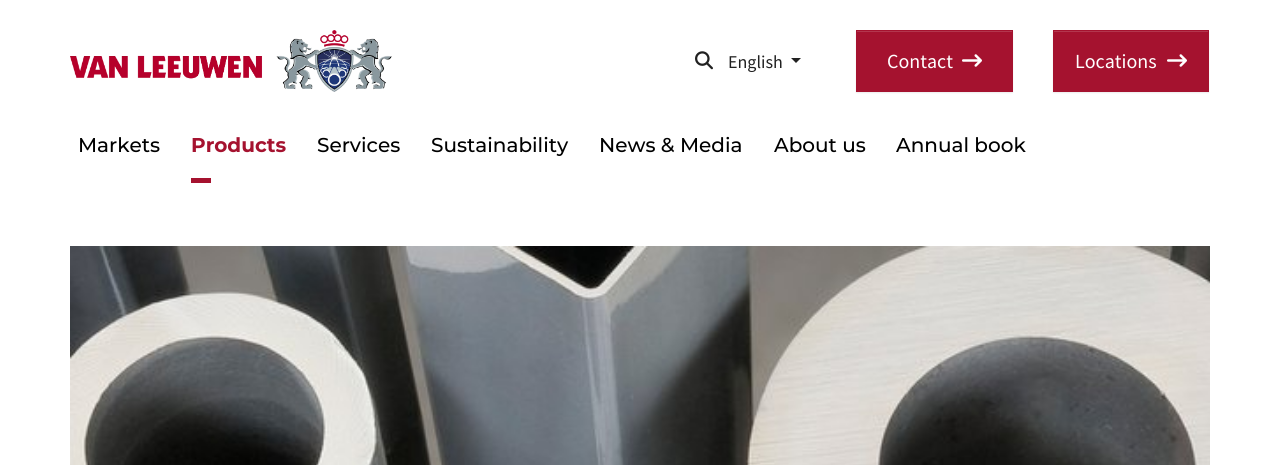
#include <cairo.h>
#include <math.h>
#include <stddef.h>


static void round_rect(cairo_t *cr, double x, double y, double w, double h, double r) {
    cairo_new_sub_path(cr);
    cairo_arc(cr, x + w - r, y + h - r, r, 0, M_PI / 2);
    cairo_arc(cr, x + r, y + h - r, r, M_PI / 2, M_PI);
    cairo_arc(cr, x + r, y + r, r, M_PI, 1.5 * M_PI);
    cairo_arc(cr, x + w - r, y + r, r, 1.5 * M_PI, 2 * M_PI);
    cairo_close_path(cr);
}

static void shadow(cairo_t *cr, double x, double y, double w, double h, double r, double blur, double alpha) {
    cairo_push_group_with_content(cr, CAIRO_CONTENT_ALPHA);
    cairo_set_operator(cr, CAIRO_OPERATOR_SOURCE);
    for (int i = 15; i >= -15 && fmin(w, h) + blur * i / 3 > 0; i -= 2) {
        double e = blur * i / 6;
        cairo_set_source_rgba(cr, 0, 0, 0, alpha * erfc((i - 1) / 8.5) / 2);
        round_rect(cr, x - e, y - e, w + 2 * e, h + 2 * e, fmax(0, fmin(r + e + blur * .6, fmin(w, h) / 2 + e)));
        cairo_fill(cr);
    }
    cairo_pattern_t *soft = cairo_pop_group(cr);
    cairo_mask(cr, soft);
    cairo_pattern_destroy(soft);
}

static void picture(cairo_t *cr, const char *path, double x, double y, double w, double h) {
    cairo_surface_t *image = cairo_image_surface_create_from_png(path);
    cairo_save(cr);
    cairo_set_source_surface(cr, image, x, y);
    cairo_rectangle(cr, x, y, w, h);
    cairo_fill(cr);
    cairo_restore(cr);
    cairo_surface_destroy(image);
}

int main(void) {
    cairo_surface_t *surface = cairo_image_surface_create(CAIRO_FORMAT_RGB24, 1279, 465);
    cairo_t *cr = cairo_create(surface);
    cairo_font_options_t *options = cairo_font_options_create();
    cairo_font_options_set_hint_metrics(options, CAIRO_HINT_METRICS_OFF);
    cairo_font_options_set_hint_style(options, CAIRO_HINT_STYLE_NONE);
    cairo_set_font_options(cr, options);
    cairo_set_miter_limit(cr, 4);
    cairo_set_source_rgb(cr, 1, 1, 1);
    cairo_paint(cr);
    picture(cr, "img1.png", 70, 30, 322, 62);
    picture(cr, "img2.png", 695, 51, 18, 19);
    cairo_select_font_face(cr, "Source Sans Pro", CAIRO_FONT_SLANT_NORMAL, CAIRO_FONT_WEIGHT_NORMAL);
    cairo_set_font_size(cr, 18);
    cairo_set_source_rgb(cr, 0.129, 0.129, 0.129);
    cairo_move_to(cr, 728, 68);
    cairo_show_text(cr, "English");
    cairo_new_path(cr);
    cairo_move_to(cr, 791, 58);
    cairo_line_to(cr, 801, 58);
    cairo_line_to(cr, 796, 63);
    cairo_close_path(cr);
    cairo_fill(cr);
    cairo_set_source_rgb(cr, 0, 0, 0);
    shadow(cr, 856, 31, 157, 62, 0, 0.5, 0.07);
    cairo_set_source_rgb(cr, 0.647, 0.071, 0.184);
    cairo_rectangle(cr, 856, 30, 157, 62);
    cairo_fill(cr);
    cairo_set_source_rgb(cr, 0.702, 0.212, 0.306);
    cairo_rectangle(cr, 857, 31, 155, 1);
    cairo_fill(cr);
    cairo_set_font_size(cr, 20);
    cairo_set_source_rgb(cr, 1, 1, 1);
    cairo_move_to(cr, 887, 68);
    cairo_show_text(cr, "Contact");
    picture(cr, "img3.png", 962, 54, 20, 13);
    cairo_set_source_rgb(cr, 0, 0, 0);
    shadow(cr, 1053, 31, 156, 62, 0, 0.5, 0.07);
    cairo_set_source_rgb(cr, 0.647, 0.071, 0.184);
    cairo_rectangle(cr, 1053, 30, 156, 62);
    cairo_fill(cr);
    cairo_set_source_rgb(cr, 0.702, 0.212, 0.306);
    cairo_rectangle(cr, 1054, 31, 154, 1);
    cairo_fill(cr);
    cairo_set_source_rgb(cr, 1, 1, 1);
    cairo_move_to(cr, 1075, 68);
    cairo_show_text(cr, "Locations");
    picture(cr, "img3.png", 1167, 54, 20, 13);
    cairo_select_font_face(cr, "Montserrat Medium", CAIRO_FONT_SLANT_NORMAL, CAIRO_FONT_WEIGHT_NORMAL);
    cairo_set_source_rgb(cr, 0, 0, 0);
    cairo_move_to(cr, 78, 152);
    cairo_show_text(cr, "Markets");
    cairo_select_font_face(cr, "Montserrat", CAIRO_FONT_SLANT_NORMAL, CAIRO_FONT_WEIGHT_BOLD);
    cairo_set_source_rgb(cr, 0.647, 0.071, 0.184);
    cairo_move_to(cr, 191, 152);
    cairo_show_text(cr, "Products");
    cairo_rectangle(cr, 191, 178, 20, 5);
    cairo_fill(cr);
    cairo_select_font_face(cr, "Montserrat Medium", CAIRO_FONT_SLANT_NORMAL, CAIRO_FONT_WEIGHT_NORMAL);
    cairo_set_source_rgb(cr, 0, 0, 0);
    cairo_move_to(cr, 317, 152);
    cairo_show_text(cr, "Services");
    cairo_move_to(cr, 431, 152);
    cairo_show_text(cr, "Sustainability");
    cairo_move_to(cr, 599, 152);
    cairo_show_text(cr, "News & Media");
    cairo_move_to(cr, 774, 152);
    cairo_show_text(cr, "About us");
    cairo_move_to(cr, 896, 152);
    cairo_show_text(cr, "Annual book");
    picture(cr, "img4.png", 70, 246, 1140, 219);
    cairo_surface_write_to_png(surface, "page.png");
    cairo_font_options_destroy(options);
    cairo_destroy(cr);
    cairo_surface_destroy(surface);
    return 0;
}
